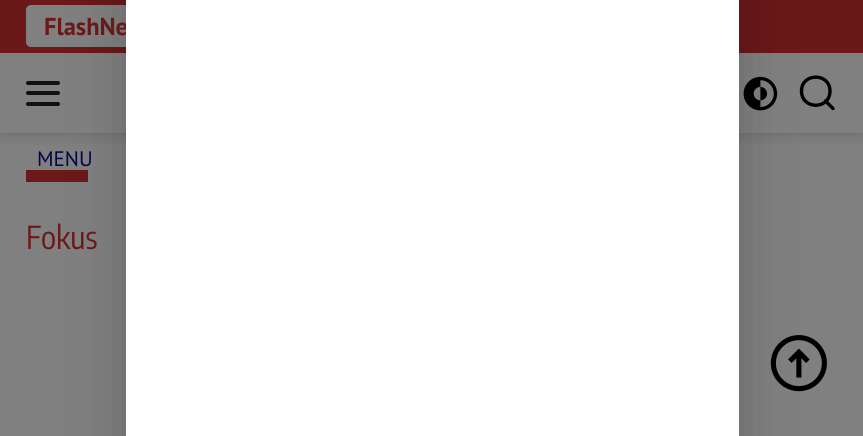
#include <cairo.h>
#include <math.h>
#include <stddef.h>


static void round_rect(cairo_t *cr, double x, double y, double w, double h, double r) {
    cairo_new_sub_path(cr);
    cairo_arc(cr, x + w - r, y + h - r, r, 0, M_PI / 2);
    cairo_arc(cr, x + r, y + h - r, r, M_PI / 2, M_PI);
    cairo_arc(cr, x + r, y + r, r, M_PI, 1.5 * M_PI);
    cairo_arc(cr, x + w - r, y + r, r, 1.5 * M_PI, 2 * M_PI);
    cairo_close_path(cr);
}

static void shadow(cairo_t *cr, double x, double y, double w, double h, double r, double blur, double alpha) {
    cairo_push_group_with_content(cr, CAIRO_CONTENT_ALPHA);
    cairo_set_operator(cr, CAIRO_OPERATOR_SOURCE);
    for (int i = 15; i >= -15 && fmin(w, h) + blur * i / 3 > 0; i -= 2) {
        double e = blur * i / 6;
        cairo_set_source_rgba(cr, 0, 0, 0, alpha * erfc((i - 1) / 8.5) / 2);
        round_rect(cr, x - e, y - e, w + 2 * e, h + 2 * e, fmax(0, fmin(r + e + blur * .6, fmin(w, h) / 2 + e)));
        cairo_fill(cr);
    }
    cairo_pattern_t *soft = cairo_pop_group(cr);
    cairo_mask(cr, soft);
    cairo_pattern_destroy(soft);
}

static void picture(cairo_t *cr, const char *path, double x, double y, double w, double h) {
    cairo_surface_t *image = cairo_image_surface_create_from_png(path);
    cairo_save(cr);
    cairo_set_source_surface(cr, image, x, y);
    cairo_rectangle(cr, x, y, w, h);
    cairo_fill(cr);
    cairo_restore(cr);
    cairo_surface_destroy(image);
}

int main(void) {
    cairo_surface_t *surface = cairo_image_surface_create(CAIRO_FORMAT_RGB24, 863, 436);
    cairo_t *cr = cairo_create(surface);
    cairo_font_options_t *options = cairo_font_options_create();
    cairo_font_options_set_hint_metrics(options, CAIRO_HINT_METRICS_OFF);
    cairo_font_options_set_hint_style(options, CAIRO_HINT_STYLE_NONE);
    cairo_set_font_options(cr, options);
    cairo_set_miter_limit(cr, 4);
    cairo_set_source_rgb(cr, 0.502, 0.502, 0.502);
    cairo_paint(cr);
    cairo_save(cr);
    cairo_rectangle(cr, 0, 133, 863, 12);
    cairo_clip(cr);
    cairo_set_source_rgb(cr, 0, 0, 0);
    shadow(cr, 0, 0, 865, 133, 0, 9, 0.2);
    cairo_restore(cr);
    cairo_set_source_rgb(cr, 0.416, 0.094, 0.094);
    cairo_rectangle(cr, 0, 0, 863, 53);
    cairo_fill(cr);
    cairo_set_source_rgb(cr, 0.502, 0.502, 0.502);
    round_rect(cr, 26, 5, 147, 42, 5);
    cairo_fill(cr);
    cairo_set_source_rgb(cr, 0.067, 0.067, 0.067);
    round_rect(cr, 26, 81, 34, 4, 2);
    cairo_fill(cr);
    round_rect(cr, 26, 91, 34, 4, 2);
    cairo_fill(cr);
    round_rect(cr, 26, 102, 34, 4, 2);
    cairo_fill(cr);
    picture(cr, "img1.png", 743, 76, 35, 35);
    cairo_new_path(cr);
    cairo_move_to(cr, 833, 108.5);
    cairo_line_to(cr, 825.5, 101);
    cairo_move_to(cr, 830, 91);
    cairo_curve_to(cr, 830, 110, 801.5, 110, 801.5, 91);
    cairo_curve_to(cr, 801.5, 72.5, 830, 72.5, 830, 91);
    cairo_close_path(cr);
    cairo_set_source_rgb(cr, 0, 0, 0);
    cairo_set_line_width(cr, 3.4);
    cairo_set_line_cap(cr, CAIRO_LINE_CAP_ROUND);
    cairo_stroke(cr);
    cairo_set_source_rgb(cr, 0.416, 0.094, 0.094);
    cairo_rectangle(cr, 26, 170, 62, 12);
    cairo_fill(cr);
    picture(cr, "img2.png", 770, 335, 57, 57);
    cairo_set_source_rgb(cr, 0, 0, 0);
    shadow(cr, 126, -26, 613, 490, 0, 28, 0.2);
    cairo_select_font_face(cr, "PT Sans", CAIRO_FONT_SLANT_NORMAL, CAIRO_FONT_WEIGHT_BOLD);
    cairo_set_font_size(cr, 24.5);
    cairo_set_source_rgb(cr, 0.416, 0.094, 0.094);
    cairo_move_to(cr, 44, 35);
    cairo_show_text(cr, "FlashNe");
    cairo_set_source_rgb(cr, 1, 1, 1);
    cairo_rectangle(cr, 126, 0, 613, 436);
    cairo_fill(cr);
    cairo_select_font_face(cr, "PT Sans", CAIRO_FONT_SLANT_NORMAL, CAIRO_FONT_WEIGHT_NORMAL);
    cairo_set_font_size(cr, 21);
    cairo_set_source_rgb(cr, 0.012, 0.02, 0.29);
    cairo_move_to(cr, 37, 166);
    cairo_show_text(cr, "MENU");
    cairo_select_font_face(cr, "Encode Sans Condensed", CAIRO_FONT_SLANT_NORMAL, CAIRO_FONT_WEIGHT_NORMAL);
    cairo_set_font_size(cr, 31.5);
    cairo_set_source_rgb(cr, 0.416, 0.094, 0.094);
    cairo_move_to(cr, 26, 249);
    cairo_show_text(cr, "Fokus");
    cairo_surface_write_to_png(surface, "page.png");
    cairo_font_options_destroy(options);
    cairo_destroy(cr);
    cairo_surface_destroy(surface);
    return 0;
}
